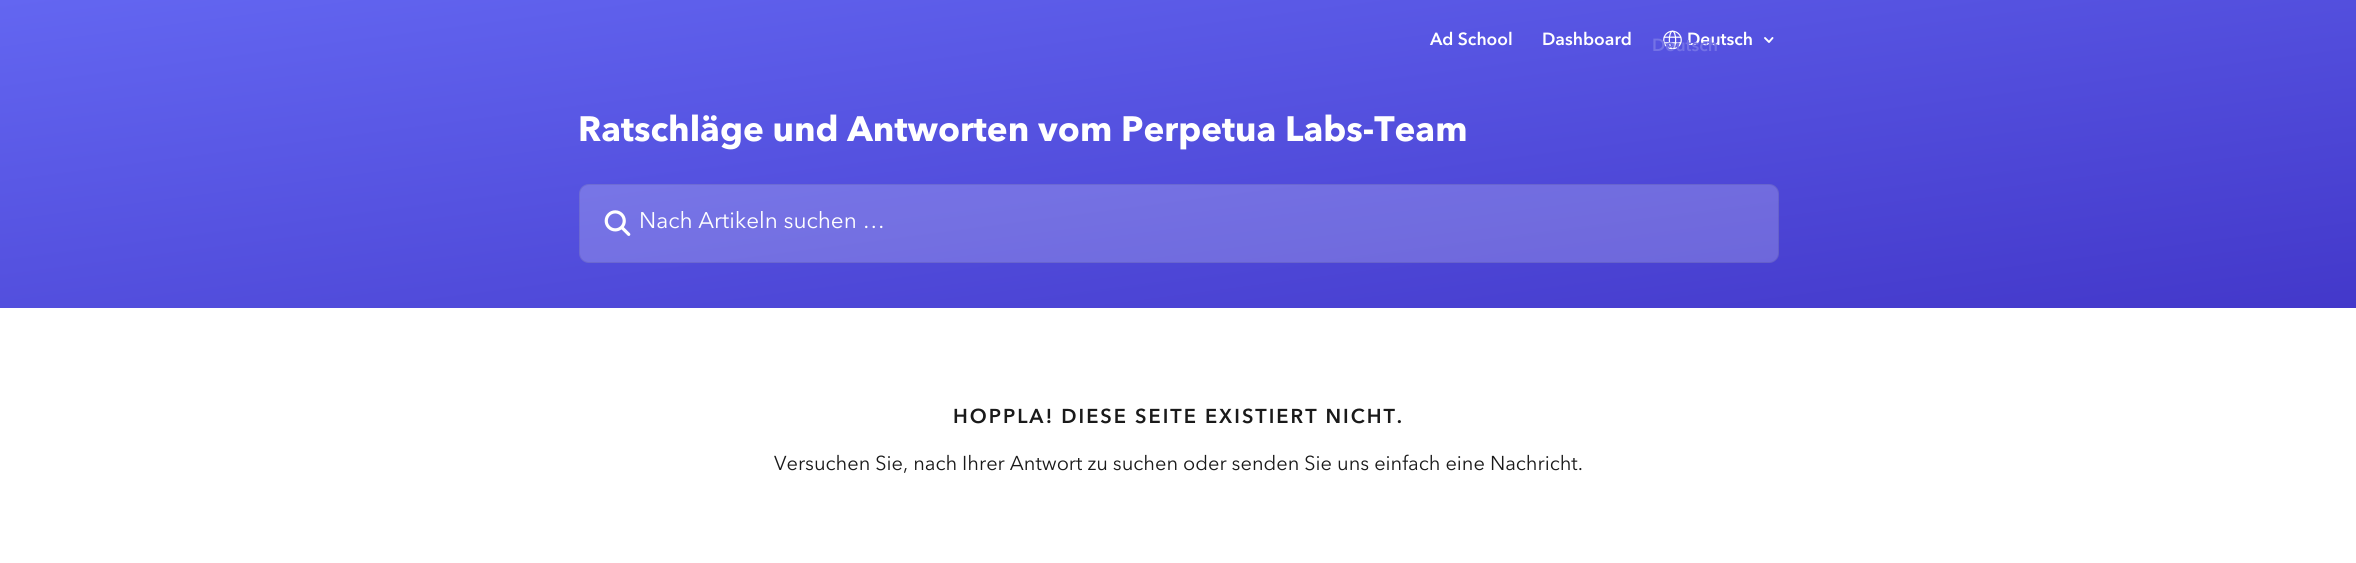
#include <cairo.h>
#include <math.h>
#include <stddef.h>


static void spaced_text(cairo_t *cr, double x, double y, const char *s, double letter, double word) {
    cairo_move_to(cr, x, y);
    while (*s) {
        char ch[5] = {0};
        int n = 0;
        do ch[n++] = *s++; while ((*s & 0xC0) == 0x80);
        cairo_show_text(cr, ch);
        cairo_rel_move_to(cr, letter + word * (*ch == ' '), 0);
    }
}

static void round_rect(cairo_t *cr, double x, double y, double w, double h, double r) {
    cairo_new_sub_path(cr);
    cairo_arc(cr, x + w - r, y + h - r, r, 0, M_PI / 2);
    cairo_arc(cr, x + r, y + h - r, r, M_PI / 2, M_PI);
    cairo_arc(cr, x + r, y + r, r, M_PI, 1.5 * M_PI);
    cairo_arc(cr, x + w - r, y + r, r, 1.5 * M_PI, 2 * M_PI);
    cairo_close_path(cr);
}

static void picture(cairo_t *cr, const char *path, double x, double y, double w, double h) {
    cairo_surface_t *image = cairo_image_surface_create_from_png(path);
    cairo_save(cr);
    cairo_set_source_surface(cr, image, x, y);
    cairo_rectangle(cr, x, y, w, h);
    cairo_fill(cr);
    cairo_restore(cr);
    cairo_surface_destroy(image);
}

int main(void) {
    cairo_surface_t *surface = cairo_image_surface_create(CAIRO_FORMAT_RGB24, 2356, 563);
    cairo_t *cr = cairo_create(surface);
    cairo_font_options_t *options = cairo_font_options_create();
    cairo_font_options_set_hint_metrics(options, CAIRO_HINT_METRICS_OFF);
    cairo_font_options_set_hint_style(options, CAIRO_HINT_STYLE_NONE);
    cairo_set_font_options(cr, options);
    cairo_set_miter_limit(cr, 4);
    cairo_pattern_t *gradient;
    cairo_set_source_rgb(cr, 1, 1, 1);
    cairo_paint(cr);
    gradient = cairo_pattern_create_linear(1139, -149, 1218, 456);
    cairo_pattern_add_color_stop_rgba(gradient, 0, 0.388, 0.4, 0.945, 1);
    cairo_pattern_add_color_stop_rgba(gradient, 1, 0.263, 0.22, 0.792, 1);
    cairo_set_source(cr, gradient);
    cairo_pattern_destroy(gradient);
    cairo_rectangle(cr, 0, 0, 2356, 308);
    cairo_fill(cr);
    cairo_select_font_face(cr, "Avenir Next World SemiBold", CAIRO_FONT_SLANT_NORMAL, CAIRO_FONT_WEIGHT_NORMAL);
    cairo_set_font_size(cr, 17.5);
    cairo_set_source_rgb(cr, 1, 1, 1);
    cairo_move_to(cr, 1430, 45);
    cairo_show_text(cr, "Ad School");
    cairo_move_to(cr, 1542, 45);
    cairo_show_text(cr, "Dashboard");
    picture(cr, "img1.png", 1663, 30, 19, 20);
    cairo_move_to(cr, 1687, 45);
    cairo_show_text(cr, "Deutsch");
    cairo_set_source_rgb(cr, 0.455, 0.447, 0.902);
    cairo_move_to(cr, 1652, 51);
    cairo_show_text(cr, "Deutsch");
    cairo_new_path(cr);
    cairo_move_to(cr, 1765, 38);
    cairo_line_to(cr, 1769, 42);
    cairo_line_to(cr, 1772.5, 38);
    cairo_set_source_rgb(cr, 1, 1, 1);
    cairo_set_line_width(cr, 1.9);
    cairo_set_line_cap(cr, CAIRO_LINE_CAP_ROUND);
    cairo_set_line_join(cr, CAIRO_LINE_JOIN_ROUND);
    cairo_stroke(cr);
    cairo_select_font_face(cr, "Avenir Next World", CAIRO_FONT_SLANT_NORMAL, CAIRO_FONT_WEIGHT_BOLD);
    cairo_set_font_size(cr, 35);
    cairo_move_to(cr, 578, 141);
    cairo_show_text(cr, "Ratschläge und Antworten vom Perpetua Labs-Team");
    cairo_set_source_rgba(cr, 1, 1, 1, 0.2);
    round_rect(cr, 579, 184, 1200, 79, 10);
    cairo_fill(cr);
    round_rect(cr, 579.5, 184.5, 1199, 78, 9.5);
    cairo_set_source_rgba(cr, 0, 0, 0, 0.08);
    cairo_set_line_width(cr, 1);
    cairo_set_line_cap(cr, CAIRO_LINE_CAP_BUTT);
    cairo_set_line_join(cr, CAIRO_LINE_JOIN_MITER);
    cairo_stroke(cr);
    picture(cr, "img2.png", 604, 210, 27, 26);
    cairo_select_font_face(cr, "Avenir Next World", CAIRO_FONT_SLANT_NORMAL, CAIRO_FONT_WEIGHT_NORMAL);
    cairo_set_font_size(cr, 22.5);
    cairo_set_source_rgb(cr, 1, 1, 1);
    cairo_move_to(cr, 639, 228);
    cairo_show_text(cr, "Nach Artikeln suchen …");
    cairo_select_font_face(cr, "Avenir Next World SemiBold", CAIRO_FONT_SLANT_NORMAL, CAIRO_FONT_WEIGHT_NORMAL);
    cairo_set_font_size(cr, 20);
    cairo_set_source_rgb(cr, 0.102, 0.102, 0.102);
    spaced_text(cr, 953, 423, "HOPPLA! DIESE SEITE EXISTIERT NICHT.", 2, 0);
    cairo_select_font_face(cr, "Avenir Next World", CAIRO_FONT_SLANT_NORMAL, CAIRO_FONT_WEIGHT_NORMAL);
    cairo_move_to(cr, 774, 470);
    cairo_show_text(cr, "Versuchen Sie, nach Ihrer Antwort zu suchen oder senden Sie uns einfach eine Nachricht.");
    cairo_surface_write_to_png(surface, "page.png");
    cairo_font_options_destroy(options);
    cairo_destroy(cr);
    cairo_surface_destroy(surface);
    return 0;
}
